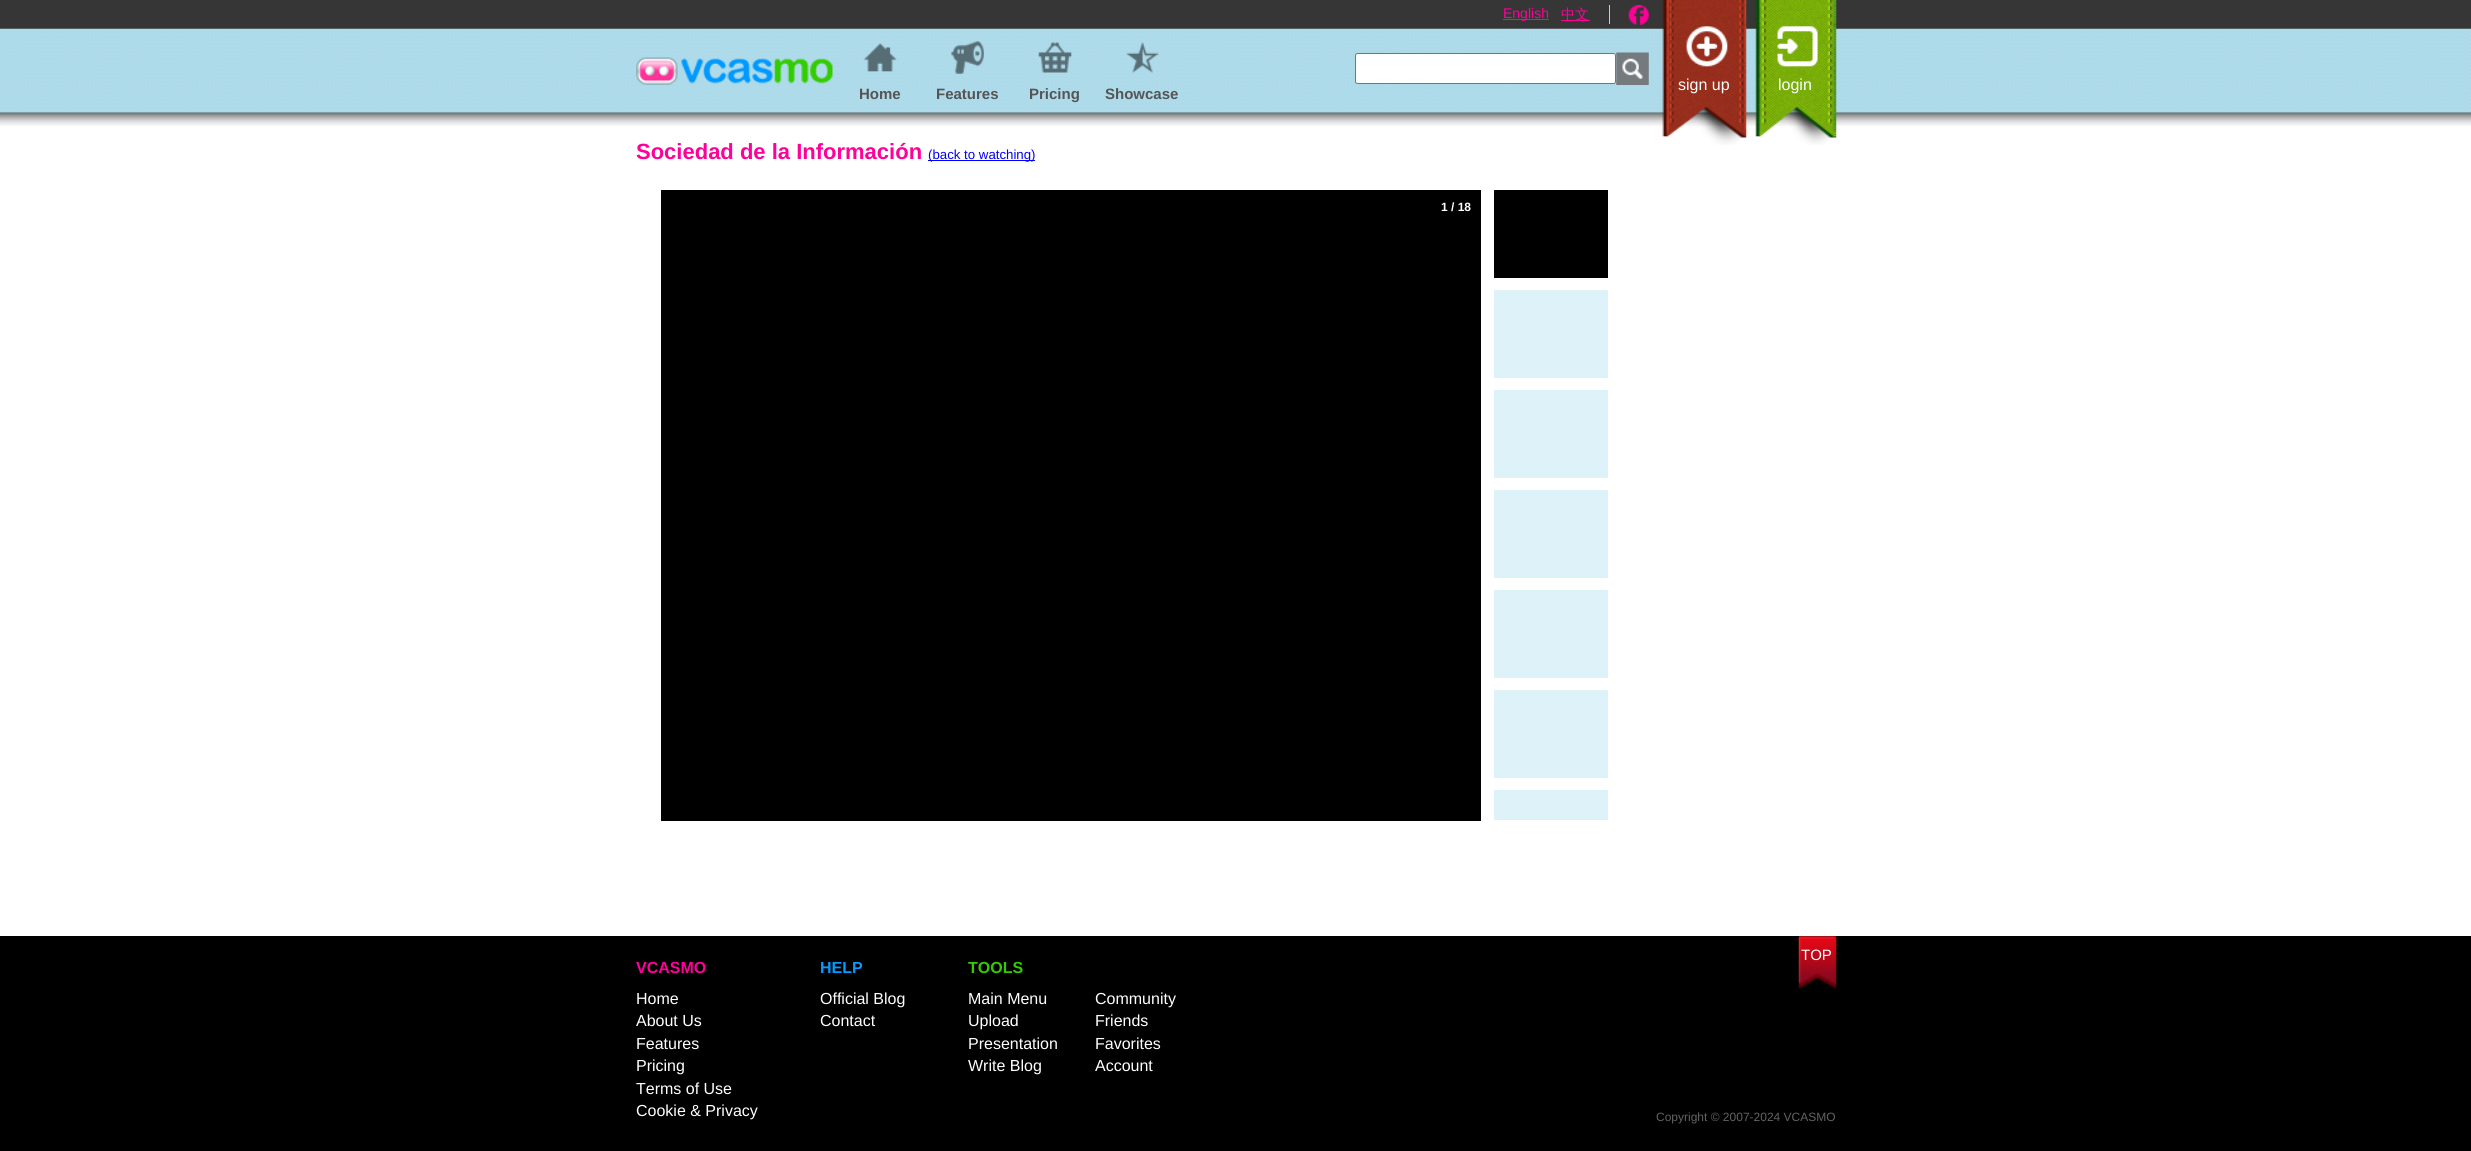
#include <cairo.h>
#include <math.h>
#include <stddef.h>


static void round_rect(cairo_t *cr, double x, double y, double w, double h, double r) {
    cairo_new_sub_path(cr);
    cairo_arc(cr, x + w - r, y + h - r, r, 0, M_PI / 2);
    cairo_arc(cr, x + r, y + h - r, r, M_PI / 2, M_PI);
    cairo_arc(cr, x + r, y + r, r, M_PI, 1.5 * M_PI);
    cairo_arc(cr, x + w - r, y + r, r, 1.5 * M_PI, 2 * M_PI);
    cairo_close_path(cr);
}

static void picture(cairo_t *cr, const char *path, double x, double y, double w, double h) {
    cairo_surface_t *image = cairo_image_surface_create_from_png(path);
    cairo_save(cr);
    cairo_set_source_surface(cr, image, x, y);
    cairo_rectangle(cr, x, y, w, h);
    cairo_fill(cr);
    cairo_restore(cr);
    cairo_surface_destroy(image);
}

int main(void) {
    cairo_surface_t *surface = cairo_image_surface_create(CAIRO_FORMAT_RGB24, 2471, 1151);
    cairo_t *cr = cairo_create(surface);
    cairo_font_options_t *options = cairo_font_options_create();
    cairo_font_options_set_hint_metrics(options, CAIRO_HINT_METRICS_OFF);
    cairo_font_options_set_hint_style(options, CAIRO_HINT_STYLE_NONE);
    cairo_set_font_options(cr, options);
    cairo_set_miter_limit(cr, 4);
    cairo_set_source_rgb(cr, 1, 1, 1);
    cairo_paint(cr);
    cairo_set_source_rgb(cr, 0.212, 0.212, 0.212);
    cairo_rectangle(cr, 0, 0, 2471, 29);
    cairo_fill(cr);
    cairo_set_source_rgb(cr, 0.667, 0.839, 0.902);
    cairo_rectangle(cr, 0, 112, 2471, 1);
    cairo_fill(cr);
    picture(cr, "img1.png", 0, 28, 2471, 84);
    cairo_set_source_rgb(cr, 0.8, 0.8, 0.8);
    cairo_rectangle(cr, 1609, 5, 1, 19);
    cairo_fill(cr);
    cairo_set_source_rgb(cr, 1, 0, 0.6);
    cairo_rectangle(cr, 1503, 19, 46, 1);
    cairo_fill(cr);
    cairo_select_font_face(cr, "Liberation Sans", CAIRO_FONT_SLANT_NORMAL, CAIRO_FONT_WEIGHT_NORMAL);
    cairo_set_font_size(cr, 14);
    cairo_move_to(cr, 1503, 18);
    cairo_show_text(cr, "English");
    cairo_rectangle(cr, 1561, 20, 29, 1);
    cairo_fill(cr);
    cairo_select_font_face(cr, "WenQuanYi Zen Hei Medium", CAIRO_FONT_SLANT_NORMAL, CAIRO_FONT_WEIGHT_NORMAL);
    cairo_move_to(cr, 1561, 19);
    cairo_show_text(cr, "中文");
    picture(cr, "img2.png", 1628, 5, 21, 20);
    cairo_set_source_rgb(cr, 1, 1, 1);
    round_rect(cr, 1355.5, 53.5, 260, 30, 2);
    cairo_fill_preserve(cr);
    cairo_set_source_rgb(cr, 0.463, 0.463, 0.463);
    cairo_set_line_width(cr, 1);
    cairo_stroke(cr);
    picture(cr, "img3.png", 1616, 52, 33, 33);
    picture(cr, "img4.png", 636, 57, 197, 28);
    picture(cr, "img11.png", 0, 112, 2471, 14);
    picture(cr, "img5.png", 1662, 0, 85, 145);
    cairo_select_font_face(cr, "Liberation Sans", CAIRO_FONT_SLANT_NORMAL, CAIRO_FONT_WEIGHT_NORMAL);
    cairo_set_font_size(cr, 16);
    cairo_set_source_rgb(cr, 1, 1, 1);
    cairo_move_to(cr, 1678, 90);
    cairo_show_text(cr, "sign up");
    picture(cr, "img6.png", 1755, 0, 82, 145);
    cairo_move_to(cr, 1778, 90);
    cairo_show_text(cr, "login");
    picture(cr, "img7.png", 863, 43, 34, 29);
    cairo_select_font_face(cr, "Liberation Sans", CAIRO_FONT_SLANT_NORMAL, CAIRO_FONT_WEIGHT_BOLD);
    cairo_set_font_size(cr, 15);
    cairo_set_source_rgb(cr, 0.333, 0.333, 0.333);
    cairo_move_to(cr, 859, 99);
    cairo_show_text(cr, "Home");
    picture(cr, "img8.png", 951, 41, 33, 33);
    cairo_move_to(cr, 936, 99);
    cairo_show_text(cr, "Features");
    picture(cr, "img9.png", 1038, 42, 34, 31);
    cairo_move_to(cr, 1029, 99);
    cairo_show_text(cr, "Pricing");
    picture(cr, "img10.png", 1126, 42, 33, 31);
    cairo_move_to(cr, 1105, 99);
    cairo_show_text(cr, "Showcase");
    cairo_set_font_size(cr, 22);
    cairo_set_source_rgb(cr, 1, 0, 0.6);
    cairo_move_to(cr, 636, 159);
    cairo_show_text(cr, "Sociedad de la Información");
    cairo_set_source_rgb(cr, 0, 0, 1);
    cairo_rectangle(cr, 928, 160, 107, 1);
    cairo_fill(cr);
    cairo_select_font_face(cr, "Liberation Sans", CAIRO_FONT_SLANT_NORMAL, CAIRO_FONT_WEIGHT_NORMAL);
    cairo_set_font_size(cr, 13.25);
    cairo_move_to(cr, 928, 159);
    cairo_show_text(cr, "(back to watching)");
    cairo_set_source_rgb(cr, 0, 0, 0);
    cairo_rectangle(cr, 661, 190, 820, 631);
    cairo_fill(cr);
    cairo_select_font_face(cr, "Liberation Sans", CAIRO_FONT_SLANT_NORMAL, CAIRO_FONT_WEIGHT_BOLD);
    cairo_set_font_size(cr, 12);
    cairo_set_source_rgb(cr, 1, 1, 1);
    cairo_move_to(cr, 1441, 211);
    cairo_show_text(cr, "1 / 18");
    cairo_set_source_rgb(cr, 0, 0, 0);
    cairo_rectangle(cr, 1494, 190, 114, 88);
    cairo_fill(cr);
    cairo_set_source_rgb(cr, 0.871, 0.949, 0.98);
    cairo_rectangle(cr, 1494, 290, 114, 88);
    cairo_fill(cr);
    cairo_rectangle(cr, 1494, 390, 114, 88);
    cairo_fill(cr);
    cairo_rectangle(cr, 1494, 490, 114, 88);
    cairo_fill(cr);
    cairo_rectangle(cr, 1494, 590, 114, 88);
    cairo_fill(cr);
    cairo_rectangle(cr, 1494, 690, 114, 88);
    cairo_fill(cr);
    cairo_rectangle(cr, 1494, 790, 114, 30);
    cairo_fill(cr);
    cairo_set_source_rgb(cr, 0, 0, 0);
    cairo_rectangle(cr, 0, 936, 2471, 215);
    cairo_fill(cr);
    picture(cr, "img12.png", 1798, 936, 39, 53);
    cairo_select_font_face(cr, "Liberation Sans", CAIRO_FONT_SLANT_NORMAL, CAIRO_FONT_WEIGHT_NORMAL);
    cairo_set_font_size(cr, 15);
    cairo_set_source_rgb(cr, 1, 1, 1);
    cairo_move_to(cr, 1801, 960);
    cairo_show_text(cr, "TOP");
    cairo_select_font_face(cr, "Liberation Sans", CAIRO_FONT_SLANT_NORMAL, CAIRO_FONT_WEIGHT_BOLD);
    cairo_set_font_size(cr, 16);
    cairo_set_source_rgb(cr, 1, 0, 0.6);
    cairo_move_to(cr, 636, 973);
    cairo_show_text(cr, "VCASMO");
    cairo_select_font_face(cr, "Liberation Sans", CAIRO_FONT_SLANT_NORMAL, CAIRO_FONT_WEIGHT_NORMAL);
    cairo_set_source_rgb(cr, 1, 1, 1);
    cairo_move_to(cr, 636, 1004);
    cairo_show_text(cr, "Home");
    cairo_move_to(cr, 636, 1026);
    cairo_show_text(cr, "About Us");
    cairo_move_to(cr, 636, 1049);
    cairo_show_text(cr, "Features");
    cairo_move_to(cr, 636, 1071);
    cairo_show_text(cr, "Pricing");
    cairo_move_to(cr, 636, 1094);
    cairo_show_text(cr, "Terms of Use");
    cairo_move_to(cr, 636, 1116);
    cairo_show_text(cr, "Cookie & Privacy");
    cairo_select_font_face(cr, "Liberation Sans", CAIRO_FONT_SLANT_NORMAL, CAIRO_FONT_WEIGHT_BOLD);
    cairo_set_source_rgb(cr, 0.016, 0.604, 1);
    cairo_move_to(cr, 820, 973);
    cairo_show_text(cr, "HELP");
    cairo_select_font_face(cr, "Liberation Sans", CAIRO_FONT_SLANT_NORMAL, CAIRO_FONT_WEIGHT_NORMAL);
    cairo_set_source_rgb(cr, 1, 1, 1);
    cairo_move_to(cr, 820, 1004);
    cairo_show_text(cr, "Official Blog");
    cairo_move_to(cr, 820, 1026);
    cairo_show_text(cr, "Contact");
    cairo_select_font_face(cr, "Liberation Sans", CAIRO_FONT_SLANT_NORMAL, CAIRO_FONT_WEIGHT_BOLD);
    cairo_set_source_rgb(cr, 0.2, 0.8, 0);
    cairo_move_to(cr, 968, 973);
    cairo_show_text(cr, "TOOLS");
    cairo_select_font_face(cr, "Liberation Sans", CAIRO_FONT_SLANT_NORMAL, CAIRO_FONT_WEIGHT_NORMAL);
    cairo_set_source_rgb(cr, 1, 1, 1);
    cairo_move_to(cr, 968, 1004);
    cairo_show_text(cr, "Main Menu");
    cairo_move_to(cr, 968, 1026);
    cairo_show_text(cr, "Upload");
    cairo_move_to(cr, 968, 1049);
    cairo_show_text(cr, "Presentation");
    cairo_move_to(cr, 968, 1071);
    cairo_show_text(cr, "Write Blog");
    cairo_move_to(cr, 1095, 1004);
    cairo_show_text(cr, "Community");
    cairo_move_to(cr, 1095, 1026);
    cairo_show_text(cr, "Friends");
    cairo_move_to(cr, 1095, 1049);
    cairo_show_text(cr, "Favorites");
    cairo_move_to(cr, 1095, 1071);
    cairo_show_text(cr, "Account");
    cairo_set_font_size(cr, 12);
    cairo_set_source_rgb(cr, 0.388, 0.388, 0.388);
    cairo_move_to(cr, 1656, 1121);
    cairo_show_text(cr, "Copyright © 2007-2024 VCASMO");
    cairo_surface_write_to_png(surface, "page.png");
    cairo_font_options_destroy(options);
    cairo_destroy(cr);
    cairo_surface_destroy(surface);
    return 0;
}
